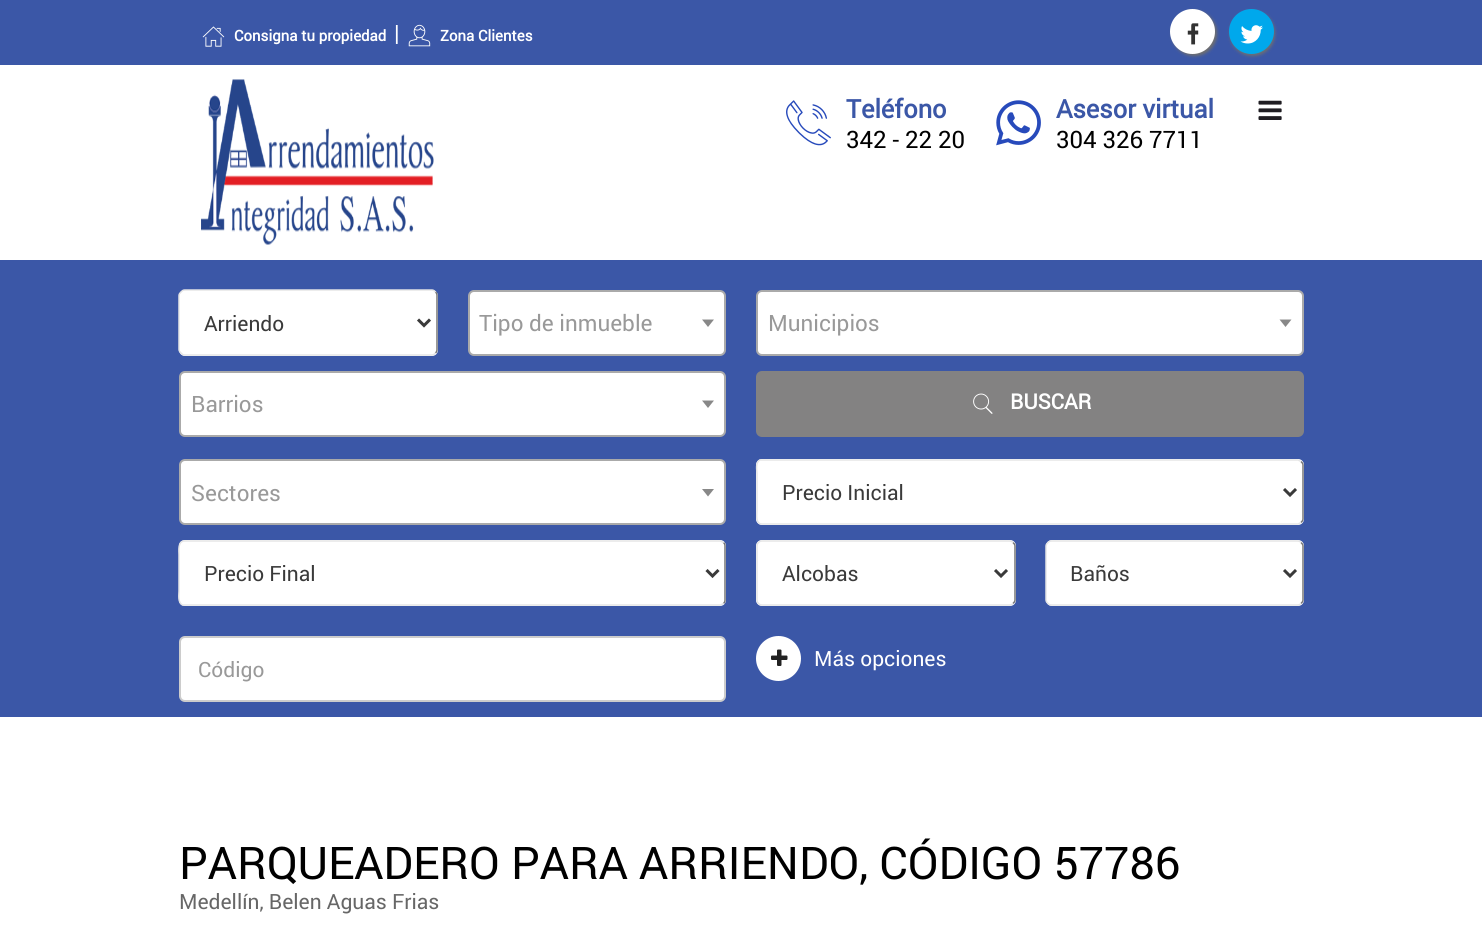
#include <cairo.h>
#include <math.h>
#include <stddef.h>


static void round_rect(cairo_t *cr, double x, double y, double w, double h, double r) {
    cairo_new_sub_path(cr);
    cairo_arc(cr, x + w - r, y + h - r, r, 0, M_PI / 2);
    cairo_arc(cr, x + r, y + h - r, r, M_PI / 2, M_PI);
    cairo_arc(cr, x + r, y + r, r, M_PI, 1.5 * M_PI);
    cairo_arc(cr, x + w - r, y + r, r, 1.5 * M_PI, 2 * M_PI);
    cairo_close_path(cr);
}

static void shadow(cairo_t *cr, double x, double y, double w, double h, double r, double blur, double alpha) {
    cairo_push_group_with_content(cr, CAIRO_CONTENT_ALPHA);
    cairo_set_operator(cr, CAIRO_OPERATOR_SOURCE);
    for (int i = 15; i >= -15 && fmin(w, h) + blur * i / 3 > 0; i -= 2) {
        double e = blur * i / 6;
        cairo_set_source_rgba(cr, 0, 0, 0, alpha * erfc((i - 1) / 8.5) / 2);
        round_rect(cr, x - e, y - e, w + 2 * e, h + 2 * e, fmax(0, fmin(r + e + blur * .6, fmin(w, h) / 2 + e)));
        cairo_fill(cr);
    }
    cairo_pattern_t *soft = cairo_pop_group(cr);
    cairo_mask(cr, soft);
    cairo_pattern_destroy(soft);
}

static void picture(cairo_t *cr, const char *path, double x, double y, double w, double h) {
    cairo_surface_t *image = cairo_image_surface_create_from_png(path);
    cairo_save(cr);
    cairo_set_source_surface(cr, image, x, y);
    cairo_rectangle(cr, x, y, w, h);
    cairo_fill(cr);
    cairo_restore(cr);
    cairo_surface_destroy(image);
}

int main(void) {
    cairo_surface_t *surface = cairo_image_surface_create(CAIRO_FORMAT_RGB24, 1482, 948);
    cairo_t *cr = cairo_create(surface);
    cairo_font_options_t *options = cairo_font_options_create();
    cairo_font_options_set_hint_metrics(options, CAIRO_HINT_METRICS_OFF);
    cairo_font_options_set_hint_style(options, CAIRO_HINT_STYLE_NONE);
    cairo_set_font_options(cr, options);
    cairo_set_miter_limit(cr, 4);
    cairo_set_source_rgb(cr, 1, 1, 1);
    cairo_paint(cr);
    cairo_set_source_rgb(cr, 0.231, 0.341, 0.655);
    cairo_rectangle(cr, 0, 0, 1482, 65);
    cairo_fill(cr);
    picture(cr, "img1.png", 202, 26, 23, 21);
    cairo_select_font_face(cr, "Roboto", CAIRO_FONT_SLANT_NORMAL, CAIRO_FONT_WEIGHT_BOLD);
    cairo_set_font_size(cr, 15);
    cairo_set_source_rgb(cr, 1, 1, 1);
    cairo_move_to(cr, 234, 41);
    cairo_show_text(cr, "Consigna tu propiedad");
    cairo_select_font_face(cr, "Roboto", CAIRO_FONT_SLANT_NORMAL, CAIRO_FONT_WEIGHT_NORMAL);
    cairo_set_font_size(cr, 22.5);
    cairo_move_to(cr, 394, 41);
    cairo_show_text(cr, "|");
    picture(cr, "img2.png", 408, 24, 23, 23);
    cairo_select_font_face(cr, "Roboto", CAIRO_FONT_SLANT_NORMAL, CAIRO_FONT_WEIGHT_BOLD);
    cairo_set_font_size(cr, 15);
    cairo_move_to(cr, 440, 41);
    cairo_show_text(cr, "Zona Clientes");
    cairo_set_source_rgb(cr, 0.435, 0.435, 0.435);
    shadow(cr, 1172, 11, 45, 45, 22.5, 1.5, 1);
    cairo_set_source_rgb(cr, 1, 1, 1);
    cairo_arc(cr, 1192.5, 31.5, 22.5, 0, 2 * M_PI);
    cairo_fill(cr);
    picture(cr, "img3.png", 1187, 23, 12, 22);
    cairo_set_source_rgb(cr, 0.435, 0.435, 0.435);
    shadow(cr, 1230, 11, 45, 45, 22.5, 1.5, 1);
    cairo_set_source_rgb(cr, 0, 0.659, 0.925);
    cairo_arc(cr, 1251.5, 31.5, 22.5, 0, 2 * M_PI);
    cairo_fill(cr);
    picture(cr, "img4.png", 1240, 25, 23, 19);
    picture(cr, "img5.png", 201, 79, 233, 166);
    picture(cr, "img6.png", 1258, 100, 24, 20);
    picture(cr, "img7.png", 786, 100, 45, 46);
    cairo_set_font_size(cr, 25.5);
    cairo_set_source_rgb(cr, 0.231, 0.341, 0.655);
    cairo_move_to(cr, 846, 118);
    cairo_show_text(cr, "Teléfono");
    cairo_select_font_face(cr, "Roboto", CAIRO_FONT_SLANT_NORMAL, CAIRO_FONT_WEIGHT_NORMAL);
    cairo_set_font_size(cr, 24);
    cairo_set_source_rgb(cr, 0, 0, 0);
    cairo_move_to(cr, 846, 148);
    cairo_show_text(cr, "342 - 22 20");
    picture(cr, "img8.png", 996, 100, 45, 46);
    cairo_select_font_face(cr, "Roboto", CAIRO_FONT_SLANT_NORMAL, CAIRO_FONT_WEIGHT_BOLD);
    cairo_set_font_size(cr, 25.5);
    cairo_set_source_rgb(cr, 0.231, 0.341, 0.655);
    cairo_move_to(cr, 1056, 118);
    cairo_show_text(cr, "Asesor virtual");
    cairo_select_font_face(cr, "Roboto", CAIRO_FONT_SLANT_NORMAL, CAIRO_FONT_WEIGHT_NORMAL);
    cairo_set_font_size(cr, 24);
    cairo_set_source_rgb(cr, 0, 0, 0);
    cairo_move_to(cr, 1056, 148);
    cairo_show_text(cr, "304 326 7711");
    cairo_set_source_rgb(cr, 0.231, 0.341, 0.655);
    cairo_rectangle(cr, 0, 260, 1482, 457);
    cairo_fill(cr);
    cairo_set_source_rgb(cr, 1, 1, 1);
    round_rect(cr, 179, 290, 259, 66, 6);
    cairo_fill(cr);
    cairo_new_path(cr);
    cairo_move_to(cr, 435.5, 292);
    cairo_curve_to(cr, 436.5, 293, 437, 294, 437, 295.5);
    cairo_line_to(cr, 437, 349.5);
    cairo_curve_to(cr, 437, 351, 436.5, 352, 435.5, 353);
    cairo_set_source_rgb(cr, 0.463, 0.463, 0.463);
    cairo_set_line_width(cr, 1.5);
    cairo_stroke(cr);
    cairo_new_path(cr);
    cairo_move_to(cr, 435.5, 353);
    cairo_curve_to(cr, 434.5, 354, 433.5, 355, 432, 355);
    cairo_line_to(cr, 184.5, 355);
    cairo_curve_to(cr, 183, 355, 182, 354, 181, 353);
    cairo_curve_to(cr, 180, 352, 179, 351, 179, 349.5);
    cairo_line_to(cr, 179, 295.5);
    cairo_curve_to(cr, 179, 294, 180, 293, 181, 292);
    cairo_curve_to(cr, 182, 291, 183, 290, 184.5, 290);
    cairo_line_to(cr, 432, 290);
    cairo_curve_to(cr, 433.5, 290, 434.5, 291, 435.5, 292);
    cairo_set_source_rgb(cr, 0.898, 0.898, 0.898);
    cairo_stroke(cr);
    cairo_new_path(cr);
    cairo_move_to(cr, 418, 319.5);
    cairo_line_to(cr, 424, 325.5);
    cairo_line_to(cr, 430, 319.5);
    cairo_set_source_rgb(cr, 0.227, 0.227, 0.227);
    cairo_set_line_width(cr, 3);
    cairo_stroke(cr);
    cairo_set_font_size(cr, 21);
    cairo_move_to(cr, 204, 331);
    cairo_show_text(cr, "Arriendo");
    cairo_set_source_rgb(cr, 1, 1, 1);
    round_rect(cr, 469, 291, 256, 64, 5);
    cairo_fill_preserve(cr);
    cairo_set_source_rgb(cr, 0.667, 0.667, 0.667);
    cairo_set_line_width(cr, 2);
    cairo_stroke(cr);
    cairo_set_font_size(cr, 22.5);
    cairo_set_source_rgb(cr, 0.6, 0.6, 0.6);
    cairo_move_to(cr, 479, 331);
    cairo_show_text(cr, "Tipo de inmueble");
    cairo_set_source_rgb(cr, 0.533, 0.533, 0.533);
    cairo_new_path(cr);
    cairo_move_to(cr, 702, 319.5);
    cairo_line_to(cr, 714, 319.5);
    cairo_line_to(cr, 708, 327);
    cairo_close_path(cr);
    cairo_fill(cr);
    cairo_set_source_rgb(cr, 1, 1, 1);
    round_rect(cr, 757, 291, 546, 64, 5);
    cairo_fill_preserve(cr);
    cairo_set_source_rgb(cr, 0.667, 0.667, 0.667);
    cairo_stroke(cr);
    cairo_set_source_rgb(cr, 0.6, 0.6, 0.6);
    cairo_move_to(cr, 768, 331);
    cairo_show_text(cr, "Municipios");
    cairo_set_source_rgb(cr, 0.533, 0.533, 0.533);
    cairo_new_path(cr);
    cairo_move_to(cr, 1279.5, 319.5);
    cairo_line_to(cr, 1291.5, 319.5);
    cairo_line_to(cr, 1285.5, 327);
    cairo_close_path(cr);
    cairo_fill(cr);
    cairo_set_source_rgb(cr, 1, 1, 1);
    round_rect(cr, 180, 372, 545, 64, 5);
    cairo_fill_preserve(cr);
    cairo_set_source_rgb(cr, 0.667, 0.667, 0.667);
    cairo_stroke(cr);
    cairo_set_source_rgb(cr, 0.6, 0.6, 0.6);
    cairo_move_to(cr, 191, 412);
    cairo_show_text(cr, "Barrios");
    cairo_set_source_rgb(cr, 0.533, 0.533, 0.533);
    cairo_new_path(cr);
    cairo_move_to(cr, 702, 400.5);
    cairo_line_to(cr, 714, 400.5);
    cairo_line_to(cr, 708, 408);
    cairo_close_path(cr);
    cairo_fill(cr);
    cairo_set_source_rgb(cr, 0.514, 0.51, 0.51);
    round_rect(cr, 756, 371, 548, 66, 6);
    cairo_fill(cr);
    picture(cr, "img9.png", 973, 393, 20, 21);
    cairo_select_font_face(cr, "Roboto", CAIRO_FONT_SLANT_NORMAL, CAIRO_FONT_WEIGHT_BOLD);
    cairo_set_font_size(cr, 21);
    cairo_set_source_rgb(cr, 1, 1, 1);
    cairo_move_to(cr, 1010, 409);
    cairo_show_text(cr, "BUSCAR");
    round_rect(cr, 180, 460, 545, 64, 5);
    cairo_fill_preserve(cr);
    cairo_set_source_rgb(cr, 0.667, 0.667, 0.667);
    cairo_stroke(cr);
    cairo_select_font_face(cr, "Roboto", CAIRO_FONT_SLANT_NORMAL, CAIRO_FONT_WEIGHT_NORMAL);
    cairo_set_font_size(cr, 22.5);
    cairo_set_source_rgb(cr, 0.6, 0.6, 0.6);
    cairo_move_to(cr, 191, 501);
    cairo_show_text(cr, "Sectores");
    cairo_set_source_rgb(cr, 0.533, 0.533, 0.533);
    cairo_new_path(cr);
    cairo_move_to(cr, 702, 489);
    cairo_line_to(cr, 714, 489);
    cairo_line_to(cr, 708, 496.5);
    cairo_close_path(cr);
    cairo_fill(cr);
    cairo_set_source_rgb(cr, 1, 1, 1);
    round_rect(cr, 756, 459, 548, 66, 6);
    cairo_fill(cr);
    cairo_new_path(cr);
    cairo_move_to(cr, 1301, 461.5);
    cairo_curve_to(cr, 1302, 462.5, 1303, 463.5, 1303, 465);
    cairo_line_to(cr, 1303, 519);
    cairo_curve_to(cr, 1303, 520.5, 1302, 521.5, 1301, 522.5);
    cairo_set_source_rgb(cr, 0.463, 0.463, 0.463);
    cairo_set_line_width(cr, 1.5);
    cairo_stroke(cr);
    cairo_new_path(cr);
    cairo_move_to(cr, 1301, 522.5);
    cairo_line_to(cr, 1298, 524);
    cairo_line_to(cr, 762, 524);
    cairo_curve_to(cr, 755, 524, 757, 514, 757, 510);
    cairo_line_to(cr, 757, 474);
    cairo_curve_to(cr, 757, 470.5, 755, 462.5, 760, 460);
    cairo_line_to(cr, 762, 460);
    cairo_line_to(cr, 1298, 460);
    cairo_line_to(cr, 1301, 461.5);
    cairo_set_source_rgb(cr, 0.898, 0.898, 0.898);
    cairo_stroke(cr);
    cairo_new_path(cr);
    cairo_move_to(cr, 1284, 489);
    cairo_line_to(cr, 1290, 495);
    cairo_line_to(cr, 1296, 489);
    cairo_set_source_rgb(cr, 0.227, 0.227, 0.227);
    cairo_set_line_width(cr, 3);
    cairo_stroke(cr);
    cairo_set_font_size(cr, 21);
    cairo_move_to(cr, 782, 500);
    cairo_show_text(cr, "Precio Inicial");
    cairo_set_source_rgb(cr, 1, 1, 1);
    round_rect(cr, 179, 540, 547, 66, 6);
    cairo_fill(cr);
    cairo_new_path(cr);
    cairo_move_to(cr, 723.5, 542.5);
    cairo_curve_to(cr, 724.5, 543.5, 725, 544.5, 725, 546);
    cairo_line_to(cr, 725, 600);
    cairo_curve_to(cr, 725, 601.5, 724.5, 602.5, 723.5, 603.5);
    cairo_set_source_rgb(cr, 0.463, 0.463, 0.463);
    cairo_set_line_width(cr, 1.5);
    cairo_stroke(cr);
    cairo_new_path(cr);
    cairo_move_to(cr, 723.5, 603.5);
    cairo_line_to(cr, 720.5, 605);
    cairo_line_to(cr, 184.5, 605);
    cairo_line_to(cr, 182.5, 605);
    cairo_curve_to(cr, 177.5, 602.5, 179, 594.5, 179, 591);
    cairo_line_to(cr, 179, 555);
    cairo_curve_to(cr, 179, 551, 177.5, 541, 184.5, 541);
    cairo_line_to(cr, 720.5, 541);
    cairo_line_to(cr, 723.5, 542.5);
    cairo_set_source_rgb(cr, 0.898, 0.898, 0.898);
    cairo_stroke(cr);
    cairo_new_path(cr);
    cairo_move_to(cr, 706.5, 570);
    cairo_line_to(cr, 712.5, 576);
    cairo_line_to(cr, 718.5, 570);
    cairo_set_source_rgb(cr, 0.227, 0.227, 0.227);
    cairo_set_line_width(cr, 3);
    cairo_stroke(cr);
    cairo_move_to(cr, 204, 581);
    cairo_show_text(cr, "Precio Final");
    cairo_set_source_rgb(cr, 1, 1, 1);
    round_rect(cr, 756, 540, 260, 66, 6);
    cairo_fill(cr);
    cairo_new_path(cr);
    cairo_move_to(cr, 1013, 542.5);
    cairo_curve_to(cr, 1014, 543.5, 1015, 544.5, 1015, 546);
    cairo_line_to(cr, 1015, 600);
    cairo_curve_to(cr, 1015, 601.5, 1014, 602.5, 1013, 603.5);
    cairo_set_source_rgb(cr, 0.463, 0.463, 0.463);
    cairo_set_line_width(cr, 1.5);
    cairo_stroke(cr);
    cairo_new_path(cr);
    cairo_move_to(cr, 1013, 603.5);
    cairo_curve_to(cr, 1012, 604.5, 1011, 605, 1009.5, 605);
    cairo_line_to(cr, 762, 605);
    cairo_curve_to(cr, 760.5, 605, 759.5, 604.5, 758.5, 603.5);
    cairo_curve_to(cr, 757.5, 602.5, 757, 601.5, 757, 600);
    cairo_line_to(cr, 757, 546);
    cairo_curve_to(cr, 757, 544.5, 757.5, 543.5, 758.5, 542.5);
    cairo_curve_to(cr, 759.5, 541.5, 760.5, 541, 762, 541);
    cairo_line_to(cr, 1009.5, 541);
    cairo_curve_to(cr, 1011, 541, 1012, 541.5, 1013, 542.5);
    cairo_set_source_rgb(cr, 0.898, 0.898, 0.898);
    cairo_stroke(cr);
    cairo_new_path(cr);
    cairo_move_to(cr, 995, 570);
    cairo_line_to(cr, 1001, 576);
    cairo_line_to(cr, 1007, 570);
    cairo_set_source_rgb(cr, 0.227, 0.227, 0.227);
    cairo_set_line_width(cr, 3);
    cairo_stroke(cr);
    cairo_move_to(cr, 782, 581);
    cairo_show_text(cr, "Alcobas");
    cairo_set_source_rgb(cr, 1, 1, 1);
    round_rect(cr, 1046, 540, 258, 66, 6);
    cairo_fill(cr);
    cairo_new_path(cr);
    cairo_move_to(cr, 1301, 542.5);
    cairo_curve_to(cr, 1302, 543.5, 1303, 544.5, 1303, 546);
    cairo_line_to(cr, 1303, 600);
    cairo_curve_to(cr, 1303, 601.5, 1302, 602.5, 1301, 603.5);
    cairo_set_source_rgb(cr, 0.463, 0.463, 0.463);
    cairo_set_line_width(cr, 1.5);
    cairo_stroke(cr);
    cairo_new_path(cr);
    cairo_move_to(cr, 1301, 603.5);
    cairo_curve_to(cr, 1300, 604.5, 1299, 605, 1297.5, 605);
    cairo_line_to(cr, 1051.5, 605);
    cairo_curve_to(cr, 1050, 605, 1049, 604.5, 1048, 603.5);
    cairo_curve_to(cr, 1047, 602.5, 1046, 601.5, 1046, 600);
    cairo_line_to(cr, 1046, 546);
    cairo_curve_to(cr, 1046, 544.5, 1047, 543.5, 1048, 542.5);
    cairo_curve_to(cr, 1049, 541.5, 1050, 541, 1051.5, 541);
    cairo_line_to(cr, 1297.5, 541);
    cairo_curve_to(cr, 1299, 541, 1300, 541.5, 1301, 542.5);
    cairo_set_source_rgb(cr, 0.898, 0.898, 0.898);
    cairo_stroke(cr);
    cairo_new_path(cr);
    cairo_move_to(cr, 1284, 570);
    cairo_line_to(cr, 1290, 576);
    cairo_line_to(cr, 1296, 570);
    cairo_set_source_rgb(cr, 0.227, 0.227, 0.227);
    cairo_set_line_width(cr, 3);
    cairo_stroke(cr);
    cairo_move_to(cr, 1070, 581);
    cairo_show_text(cr, "Baños");
    cairo_set_source_rgb(cr, 1, 1, 1);
    round_rect(cr, 180, 637, 545, 64, 5);
    cairo_fill_preserve(cr);
    cairo_set_source_rgb(cr, 0.8, 0.8, 0.8);
    cairo_set_line_width(cr, 2);
    cairo_stroke(cr);
    cairo_set_source_rgb(cr, 0.6, 0.6, 0.6);
    cairo_move_to(cr, 198, 677);
    cairo_show_text(cr, "Código");
    cairo_set_source_rgb(cr, 1, 1, 1);
    cairo_new_path(cr);
    cairo_arc(cr, 778.5, 658.5, 22.5, 0, 2 * M_PI);
    cairo_fill(cr);
    picture(cr, "img10.png", 771, 649, 17, 17);
    cairo_move_to(cr, 814, 666);
    cairo_show_text(cr, "Más opciones");
    cairo_set_font_size(cr, 45);
    cairo_set_source_rgb(cr, 0, 0, 0);
    cairo_move_to(cr, 179, 879);
    cairo_show_text(cr, "PARQUEADERO PARA ARRIENDO, CÓDIGO 57786");
    cairo_set_font_size(cr, 21);
    cairo_set_source_rgb(cr, 0.404, 0.404, 0.404);
    cairo_move_to(cr, 179, 909);
    cairo_show_text(cr, "Medellín, Belen Aguas Frias");
    cairo_surface_write_to_png(surface, "page.png");
    cairo_font_options_destroy(options);
    cairo_destroy(cr);
    cairo_surface_destroy(surface);
    return 0;
}
